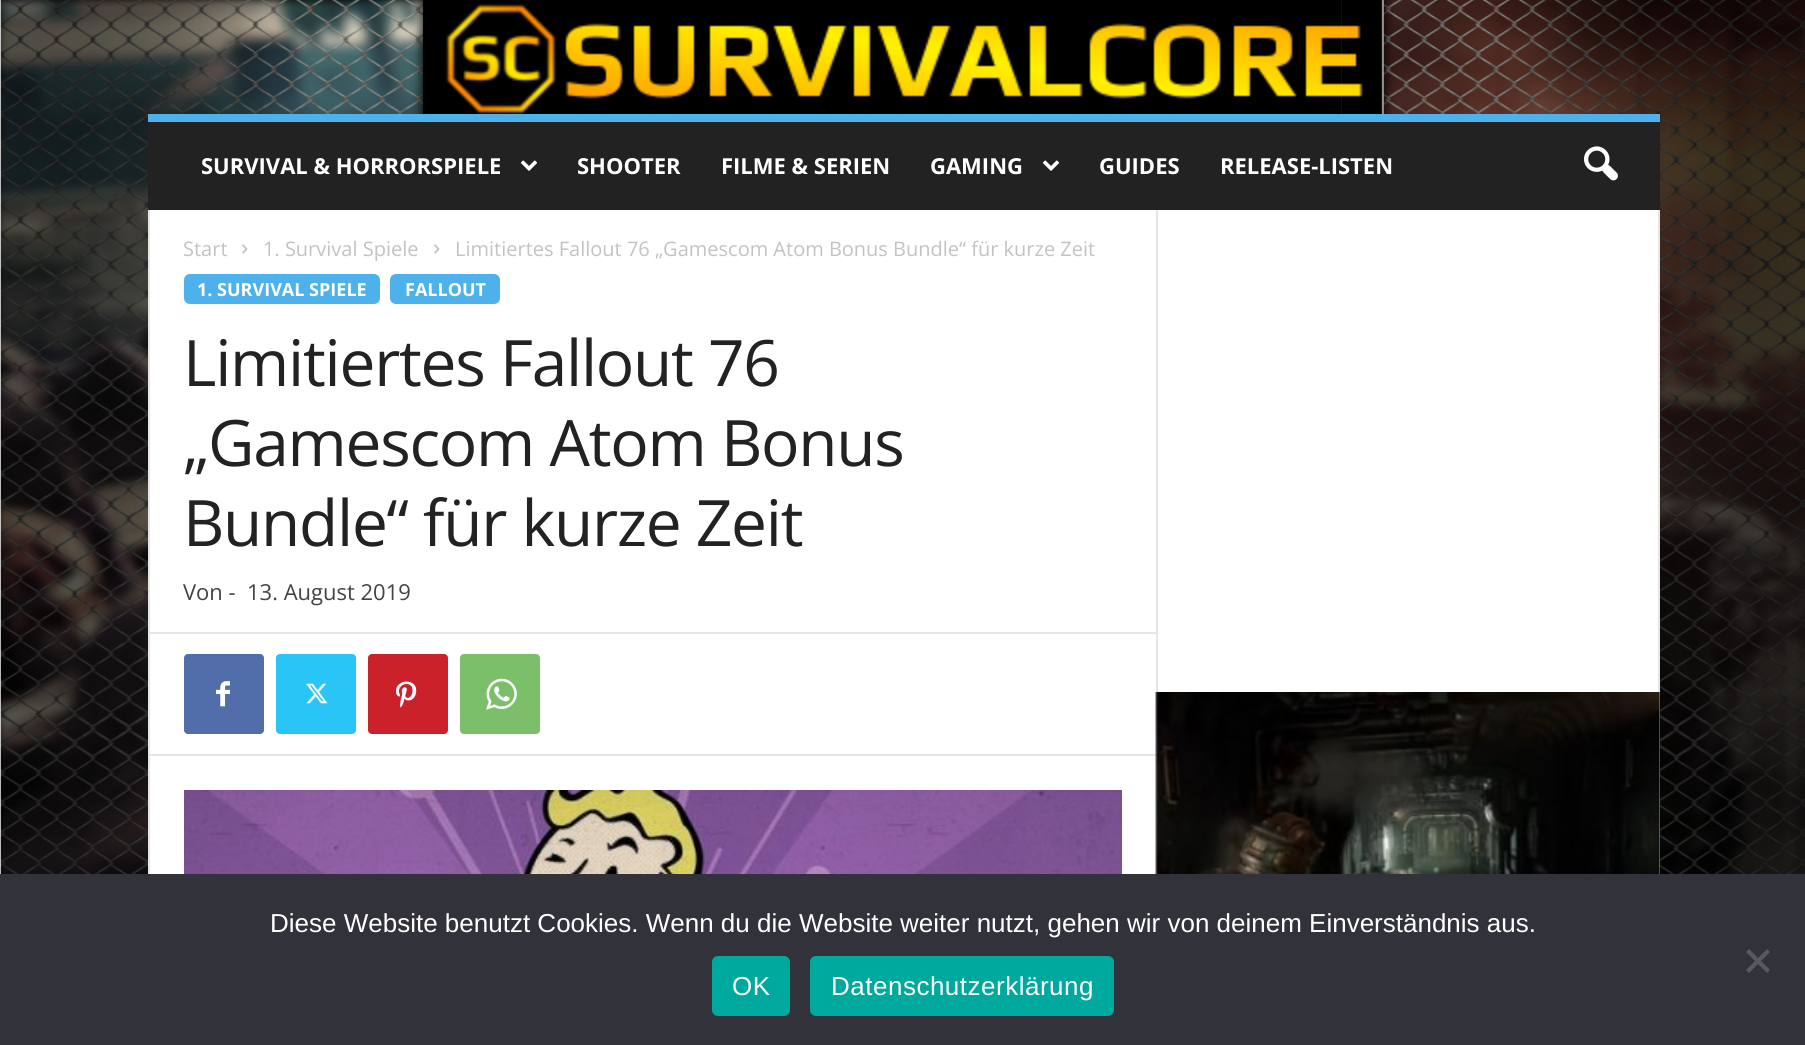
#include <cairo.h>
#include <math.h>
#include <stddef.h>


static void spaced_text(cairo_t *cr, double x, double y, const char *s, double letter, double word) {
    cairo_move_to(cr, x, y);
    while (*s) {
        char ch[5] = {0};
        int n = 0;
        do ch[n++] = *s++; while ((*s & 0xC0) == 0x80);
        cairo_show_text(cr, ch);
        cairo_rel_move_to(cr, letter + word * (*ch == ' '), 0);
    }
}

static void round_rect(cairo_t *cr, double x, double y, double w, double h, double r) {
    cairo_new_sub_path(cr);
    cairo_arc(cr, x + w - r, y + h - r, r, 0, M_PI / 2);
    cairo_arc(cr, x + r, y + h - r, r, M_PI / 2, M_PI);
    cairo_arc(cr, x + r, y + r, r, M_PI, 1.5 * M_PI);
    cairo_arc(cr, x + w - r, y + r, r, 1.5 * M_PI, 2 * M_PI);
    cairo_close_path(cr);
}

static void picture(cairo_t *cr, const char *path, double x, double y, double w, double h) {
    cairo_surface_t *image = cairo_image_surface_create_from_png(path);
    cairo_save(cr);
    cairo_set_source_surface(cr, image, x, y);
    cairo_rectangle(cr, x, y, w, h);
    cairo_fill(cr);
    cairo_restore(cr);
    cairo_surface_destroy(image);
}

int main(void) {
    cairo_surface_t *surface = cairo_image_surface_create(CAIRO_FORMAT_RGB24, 1805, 1045);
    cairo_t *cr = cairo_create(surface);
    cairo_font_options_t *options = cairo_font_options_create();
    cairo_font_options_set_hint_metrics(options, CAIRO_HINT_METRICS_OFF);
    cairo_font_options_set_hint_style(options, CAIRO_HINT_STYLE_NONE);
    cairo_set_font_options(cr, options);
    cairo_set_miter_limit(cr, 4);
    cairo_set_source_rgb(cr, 1, 1, 1);
    cairo_paint(cr);
    picture(cr, "img1.png", 0, 0, 1805, 874);
    picture(cr, "img2.png", 445, 3, 918, 111);
    cairo_set_source_rgb(cr, 0.133, 0.133, 0.133);
    cairo_rectangle(cr, 148, 122, 1512, 88);
    cairo_fill(cr);
    cairo_set_source_rgb(cr, 0.302, 0.698, 0.925);
    cairo_rectangle(cr, 148, 114, 1512, 8);
    cairo_fill(cr);
    cairo_select_font_face(cr, "Open Sans", CAIRO_FONT_SLANT_NORMAL, CAIRO_FONT_WEIGHT_BOLD);
    cairo_set_font_size(cr, 22);
    cairo_set_source_rgb(cr, 1, 1, 1);
    cairo_move_to(cr, 201, 174);
    cairo_show_text(cr, "SURVIVAL & HORRORSPIELE");
    picture(cr, "img3.png", 520, 160, 18, 11);
    cairo_move_to(cr, 577, 174);
    cairo_show_text(cr, "SHOOTER");
    cairo_move_to(cr, 721, 174);
    cairo_show_text(cr, "FILME & SERIEN");
    cairo_move_to(cr, 930, 174);
    cairo_show_text(cr, "GAMING");
    picture(cr, "img3.png", 1042, 160, 18, 11);
    cairo_move_to(cr, 1099, 174);
    cairo_show_text(cr, "GUIDES");
    cairo_move_to(cr, 1220, 174);
    cairo_show_text(cr, "RELEASE-LISTEN");
    picture(cr, "img4.png", 1584, 146, 34, 35);
    cairo_rectangle(cr, 150, 210, 1508, 664);
    cairo_fill(cr);
    cairo_set_source_rgb(cr, 0.902, 0.902, 0.902);
    cairo_rectangle(cr, 148, 210, 2, 664);
    cairo_fill(cr);
    cairo_select_font_face(cr, "Open Sans", CAIRO_FONT_SLANT_NORMAL, CAIRO_FONT_WEIGHT_NORMAL);
    cairo_set_font_size(cr, 20);
    cairo_set_source_rgb(cr, 0.765, 0.765, 0.765);
    cairo_move_to(cr, 183, 256);
    cairo_show_text(cr, "Start");
    picture(cr, "img5.png", 242, 244, 6, 10);
    cairo_move_to(cr, 263, 256);
    cairo_show_text(cr, "1. Survival Spiele");
    picture(cr, "img5.png", 434, 244, 6, 10);
    cairo_move_to(cr, 455, 256);
    cairo_show_text(cr, "Limitiertes Fallout 76 „Gamescom Atom Bonus Bundle“ für kurze Zeit");
    cairo_set_source_rgb(cr, 0.302, 0.698, 0.925);
    round_rect(cr, 184, 274, 196, 30, 6);
    cairo_fill(cr);
    cairo_select_font_face(cr, "Open Sans", CAIRO_FONT_SLANT_NORMAL, CAIRO_FONT_WEIGHT_BOLD);
    cairo_set_font_size(cr, 18);
    cairo_set_source_rgb(cr, 1, 1, 1);
    cairo_move_to(cr, 197, 296);
    cairo_show_text(cr, "1. SURVIVAL SPIELE");
    cairo_set_source_rgb(cr, 0.302, 0.698, 0.925);
    round_rect(cr, 390, 274, 110, 30, 6);
    cairo_fill(cr);
    cairo_set_source_rgb(cr, 1, 1, 1);
    cairo_move_to(cr, 405, 296);
    cairo_show_text(cr, "FALLOUT");
    cairo_select_font_face(cr, "Open Sans", CAIRO_FONT_SLANT_NORMAL, CAIRO_FONT_WEIGHT_NORMAL);
    cairo_set_font_size(cr, 64);
    cairo_set_source_rgb(cr, 0.133, 0.133, 0.133);
    spaced_text(cr, 183, 386, "Limitiertes Fallout 76", -1.25, 0);
    spaced_text(cr, 183, 466, "„Gamescom Atom Bonus", -1.25, 0);
    spaced_text(cr, 183, 546, "Bundle“ für kurze Zeit", -1.25, 0);
    cairo_set_font_size(cr, 22);
    cairo_set_source_rgb(cr, 0.267, 0.267, 0.267);
    cairo_move_to(cr, 183, 600);
    cairo_show_text(cr, "Von -");
    cairo_move_to(cr, 247, 600);
    cairo_show_text(cr, "13. August 2019");
    cairo_set_source_rgb(cr, 0.902, 0.902, 0.902);
    cairo_rectangle(cr, 150, 632, 1006, 2);
    cairo_fill(cr);
    cairo_set_source_rgb(cr, 0.318, 0.431, 0.671);
    round_rect(cr, 184, 654, 80, 80, 4);
    cairo_fill(cr);
    picture(cr, "img6.png", 216, 681, 14, 26);
    cairo_set_source_rgb(cr, 0.161, 0.773, 0.965);
    round_rect(cr, 276, 654, 80, 80, 4);
    cairo_fill(cr);
    picture(cr, "img7.png", 306, 683, 22, 21);
    cairo_set_source_rgb(cr, 0.792, 0.129, 0.165);
    round_rect(cr, 368, 654, 80, 80, 4);
    cairo_fill(cr);
    picture(cr, "img8.png", 396, 681, 21, 27);
    cairo_set_source_rgb(cr, 0.482, 0.749, 0.416);
    round_rect(cr, 460, 654, 80, 80, 4);
    cairo_fill(cr);
    picture(cr, "img9.png", 486, 678, 31, 32);
    cairo_set_source_rgb(cr, 0.902, 0.902, 0.902);
    cairo_rectangle(cr, 150, 754, 1006, 2);
    cairo_fill(cr);
    picture(cr, "img10.png", 184, 790, 938, 84);
    cairo_rectangle(cr, 1156, 210, 2, 664);
    cairo_fill(cr);
    cairo_rectangle(cr, 1658, 210, 2, 664);
    cairo_fill(cr);
    picture(cr, "img11.png", 1155, 692, 505, 182);
    cairo_set_source_rgb(cr, 0.196, 0.196, 0.227);
    cairo_rectangle(cr, 0, 874, 1805, 171);
    cairo_fill(cr);
    cairo_select_font_face(cr, "Liberation Sans", CAIRO_FONT_SLANT_NORMAL, CAIRO_FONT_WEIGHT_NORMAL);
    cairo_set_font_size(cr, 26);
    cairo_set_source_rgb(cr, 1, 1, 1);
    cairo_move_to(cr, 270, 932);
    cairo_show_text(cr, "Diese Website benutzt Cookies. Wenn du die Website weiter nutzt, gehen wir von deinem Einverständnis aus.");
    cairo_set_source_rgb(cr, 0.349, 0.349, 0.365);
    cairo_new_path(cr);
    cairo_move_to(cr, 1767, 949);
    cairo_line_to(cr, 1770, 952);
    cairo_line_to(cr, 1749, 973);
    cairo_line_to(cr, 1746, 970);
    cairo_close_path(cr);
    cairo_fill(cr);
    cairo_new_path(cr);
    cairo_move_to(cr, 1746, 952);
    cairo_line_to(cr, 1749, 949);
    cairo_line_to(cr, 1770, 970);
    cairo_line_to(cr, 1767, 973);
    cairo_close_path(cr);
    cairo_fill(cr);
    cairo_set_source_rgb(cr, 0, 0.663, 0.616);
    round_rect(cr, 712, 956, 78, 60, 6);
    cairo_fill(cr);
    cairo_set_source_rgb(cr, 1, 1, 1);
    spaced_text(cr, 732, 995, "OK", 0.5, 0);
    cairo_set_source_rgb(cr, 0, 0.663, 0.616);
    round_rect(cr, 810, 956, 304, 60, 6);
    cairo_fill(cr);
    cairo_set_source_rgb(cr, 1, 1, 1);
    spaced_text(cr, 831, 995, "Datenschutzerklärung", 0.5, 0);
    cairo_surface_write_to_png(surface, "page.png");
    cairo_font_options_destroy(options);
    cairo_destroy(cr);
    cairo_surface_destroy(surface);
    return 0;
}
